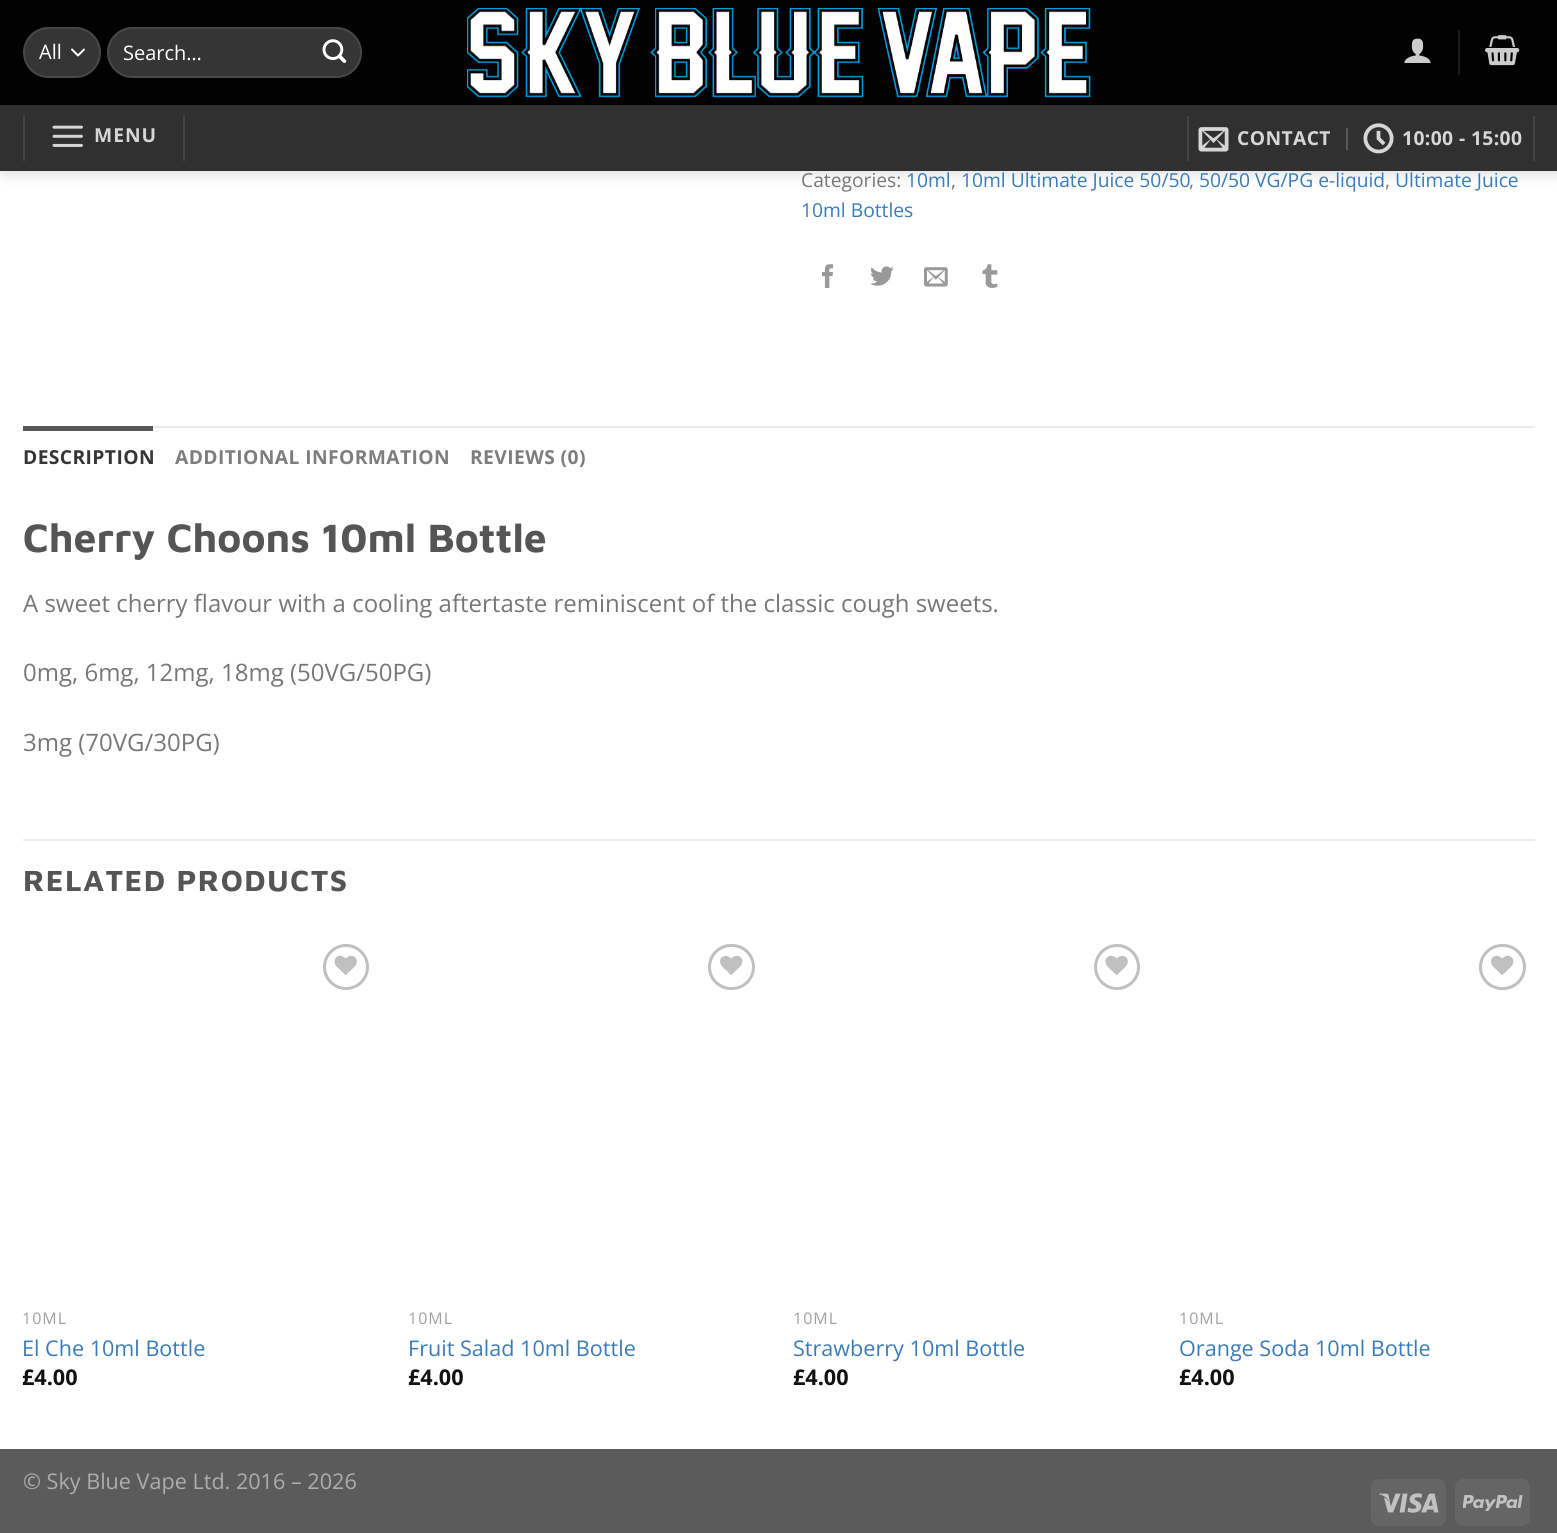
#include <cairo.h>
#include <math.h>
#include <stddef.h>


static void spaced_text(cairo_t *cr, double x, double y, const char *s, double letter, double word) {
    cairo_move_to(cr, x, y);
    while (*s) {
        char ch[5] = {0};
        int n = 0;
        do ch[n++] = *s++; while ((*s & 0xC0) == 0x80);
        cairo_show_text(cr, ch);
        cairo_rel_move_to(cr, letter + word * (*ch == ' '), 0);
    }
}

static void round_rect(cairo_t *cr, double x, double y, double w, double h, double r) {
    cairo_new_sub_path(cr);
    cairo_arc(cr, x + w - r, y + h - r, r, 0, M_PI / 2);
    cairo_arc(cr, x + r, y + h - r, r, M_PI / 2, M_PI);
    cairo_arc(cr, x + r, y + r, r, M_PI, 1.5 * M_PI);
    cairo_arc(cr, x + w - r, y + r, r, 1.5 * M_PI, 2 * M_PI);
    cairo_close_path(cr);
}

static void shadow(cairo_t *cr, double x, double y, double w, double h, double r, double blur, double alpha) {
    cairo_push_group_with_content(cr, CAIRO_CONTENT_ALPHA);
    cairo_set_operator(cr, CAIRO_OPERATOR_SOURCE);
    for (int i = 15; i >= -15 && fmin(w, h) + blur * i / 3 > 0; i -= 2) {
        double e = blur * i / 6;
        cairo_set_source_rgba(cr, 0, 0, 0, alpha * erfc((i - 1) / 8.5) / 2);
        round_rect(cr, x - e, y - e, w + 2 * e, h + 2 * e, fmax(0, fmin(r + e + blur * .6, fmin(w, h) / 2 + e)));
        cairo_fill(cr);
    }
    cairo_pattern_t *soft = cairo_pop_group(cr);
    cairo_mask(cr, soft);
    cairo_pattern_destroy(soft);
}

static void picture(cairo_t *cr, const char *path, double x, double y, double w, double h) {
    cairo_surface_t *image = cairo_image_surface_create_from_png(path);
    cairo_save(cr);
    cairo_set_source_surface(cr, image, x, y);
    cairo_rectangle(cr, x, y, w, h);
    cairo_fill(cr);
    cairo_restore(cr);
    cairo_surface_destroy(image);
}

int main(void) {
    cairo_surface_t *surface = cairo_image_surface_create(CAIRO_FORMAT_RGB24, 1557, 1533);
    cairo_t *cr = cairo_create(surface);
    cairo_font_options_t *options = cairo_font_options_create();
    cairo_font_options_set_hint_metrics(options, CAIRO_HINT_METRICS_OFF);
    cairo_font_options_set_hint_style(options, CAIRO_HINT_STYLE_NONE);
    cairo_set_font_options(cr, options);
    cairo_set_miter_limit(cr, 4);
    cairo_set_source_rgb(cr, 1, 1, 1);
    cairo_paint(cr);
    cairo_set_source_rgb(cr, 0, 0, 0);
    shadow(cr, 2, 2, 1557, 171, 0, 7.5, 0.15);
    cairo_set_source_rgb(cr, 0.008, 0.008, 0.008);
    cairo_rectangle(cr, 0, 0, 1557, 105);
    cairo_fill(cr);
    cairo_set_source_rgb(cr, 0.208, 0.208, 0.208);
    round_rect(cr, 23, 27, 78, 51, 25.5);
    cairo_fill(cr);
    cairo_new_path(cr);
    cairo_move_to(cr, 72, 49.5);
    cairo_line_to(cr, 78, 55.5);
    cairo_line_to(cr, 84, 49.5);
    cairo_set_source_rgb(cr, 1, 1, 1);
    cairo_set_line_cap(cr, CAIRO_LINE_CAP_ROUND);
    cairo_set_line_join(cr, CAIRO_LINE_JOIN_ROUND);
    cairo_stroke(cr);
    round_rect(cr, 24, 28, 76, 49, 24.5);
    cairo_set_source_rgba(cr, 1, 1, 1, 0.09);
    cairo_set_line_cap(cr, CAIRO_LINE_CAP_BUTT);
    cairo_set_line_join(cr, CAIRO_LINE_JOIN_MITER);
    cairo_stroke(cr);
    cairo_select_font_face(cr, "Open Sans", CAIRO_FONT_SLANT_NORMAL, CAIRO_FONT_WEIGHT_NORMAL);
    cairo_set_font_size(cr, 20);
    cairo_set_source_rgb(cr, 1, 1, 1);
    cairo_move_to(cr, 39, 59);
    cairo_show_text(cr, "All");
    cairo_set_source_rgb(cr, 0.208, 0.208, 0.208);
    round_rect(cr, 107, 27, 255, 51, 25.5);
    cairo_fill(cr);
    round_rect(cr, 108, 28, 253, 49, 24.5);
    cairo_set_source_rgba(cr, 1, 1, 1, 0.09);
    cairo_stroke(cr);
    cairo_set_source_rgb(cr, 1, 1, 1);
    cairo_move_to(cr, 123, 60);
    cairo_show_text(cr, "Search…");
    picture(cr, "img1.png", 322, 39, 25, 24);
    picture(cr, "img2.png", 467, 8, 624, 90);
    picture(cr, "img3.png", 1404, 38, 27, 25);
    cairo_set_source_rgb(cr, 0.106, 0.106, 0.106);
    cairo_rectangle(cr, 1458, 30, 2, 45);
    cairo_fill(cr);
    picture(cr, "img4.png", 1485, 35, 35, 31);
    cairo_set_source_rgb(cr, 0.188, 0.188, 0.188);
    cairo_rectangle(cr, 0, 105, 1557, 66);
    cairo_fill(cr);
    cairo_set_source_rgb(cr, 0.271, 0.271, 0.271);
    cairo_rectangle(cr, 23, 116, 2, 45);
    cairo_fill(cr);
    picture(cr, "img5.png", 52, 125, 31, 22);
    cairo_select_font_face(cr, "Open Sans", CAIRO_FONT_SLANT_NORMAL, CAIRO_FONT_WEIGHT_BOLD);
    cairo_set_font_size(cr, 19.25);
    cairo_set_source_rgb(cr, 0.839, 0.839, 0.839);
    spaced_text(cr, 94, 142, "MENU", 1, 0);
    cairo_set_source_rgb(cr, 0.271, 0.271, 0.271);
    cairo_rectangle(cr, 183, 116, 2, 45);
    cairo_fill(cr);
    cairo_rectangle(cr, 1187, 116, 2, 45);
    cairo_fill(cr);
    picture(cr, "img6.png", 1198, 127, 31, 25);
    cairo_set_source_rgb(cr, 0.839, 0.839, 0.839);
    spaced_text(cr, 1237, 145, "CONTACT", 0.4, 0);
    cairo_set_source_rgb(cr, 0.349, 0.349, 0.349);
    cairo_rectangle(cr, 1346, 128, 2, 22);
    cairo_fill(cr);
    picture(cr, "img7.png", 1363, 123, 31, 31);
    cairo_set_source_rgb(cr, 0.839, 0.839, 0.839);
    spaced_text(cr, 1402, 145, "10:00 - 15:00", 0.4, 0);
    cairo_set_source_rgb(cr, 0.271, 0.271, 0.271);
    cairo_rectangle(cr, 1533, 116, 2, 45);
    cairo_fill(cr);
    cairo_select_font_face(cr, "Open Sans", CAIRO_FONT_SLANT_NORMAL, CAIRO_FONT_WEIGHT_NORMAL);
    cairo_set_source_rgb(cr, 0.467, 0.467, 0.467);
    cairo_move_to(cr, 801, 187);
    cairo_show_text(cr, "Categories:");
    cairo_set_source_rgb(cr, 0.227, 0.486, 0.729);
    cairo_move_to(cr, 906, 187);
    cairo_show_text(cr, "10ml");
    cairo_set_source_rgb(cr, 0.467, 0.467, 0.467);
    cairo_move_to(cr, 951, 187);
    cairo_show_text(cr, ",");
    cairo_set_source_rgb(cr, 0.227, 0.486, 0.729);
    cairo_move_to(cr, 961, 187);
    cairo_show_text(cr, "10ml Ultimate Juice 50/50");
    cairo_set_source_rgb(cr, 0.467, 0.467, 0.467);
    cairo_move_to(cr, 1189, 187);
    cairo_show_text(cr, ",");
    cairo_set_source_rgb(cr, 0.227, 0.486, 0.729);
    cairo_move_to(cr, 1199, 187);
    cairo_show_text(cr, "50/50 VG/PG e-liquid");
    cairo_set_source_rgb(cr, 0.467, 0.467, 0.467);
    cairo_move_to(cr, 1385, 187);
    cairo_show_text(cr, ",");
    cairo_set_source_rgb(cr, 0.227, 0.486, 0.729);
    cairo_move_to(cr, 1395, 187);
    cairo_show_text(cr, "Ultimate Juice");
    cairo_move_to(cr, 801, 217);
    cairo_show_text(cr, "10ml Bottles");
    picture(cr, "img8.png", 821, 264, 12, 24);
    picture(cr, "img9.png", 870, 266, 24, 20);
    picture(cr, "img10.png", 924, 267, 24, 20);
    picture(cr, "img11.png", 982, 264, 16, 24);
    cairo_set_source_rgb(cr, 0.925, 0.925, 0.925);
    cairo_rectangle(cr, 153, 426, 1382, 2);
    cairo_fill(cr);
    cairo_set_source_rgb(cr, 0.349, 0.349, 0.349);
    cairo_rectangle(cr, 23, 426, 130, 5);
    cairo_fill(cr);
    cairo_select_font_face(cr, "Open Sans", CAIRO_FONT_SLANT_NORMAL, CAIRO_FONT_WEIGHT_BOLD);
    cairo_set_source_rgb(cr, 0.208, 0.208, 0.208);
    spaced_text(cr, 23, 464, "DESCRIPTION", 0.4, 0);
    cairo_set_source_rgb(cr, 0.49, 0.49, 0.49);
    spaced_text(cr, 175, 464, "ADDITIONAL INFORMATION", 0.4, 0);
    spaced_text(cr, 470, 464, "REVIEWS (0)", 0.4, 0);
    cairo_select_font_face(cr, "Maven Pro", CAIRO_FONT_SLANT_NORMAL, CAIRO_FONT_WEIGHT_BOLD);
    cairo_set_font_size(cr, 40.75);
    cairo_set_source_rgb(cr, 0.333, 0.333, 0.333);
    cairo_move_to(cr, 23, 552);
    cairo_show_text(cr, "Cherry Choons 10ml Bottle");
    cairo_select_font_face(cr, "Open Sans", CAIRO_FONT_SLANT_NORMAL, CAIRO_FONT_WEIGHT_NORMAL);
    cairo_set_font_size(cr, 24);
    cairo_set_source_rgb(cr, 0.467, 0.467, 0.467);
    cairo_move_to(cr, 23, 612);
    cairo_show_text(cr, "A sweet cherry flavour with a cooling aftertaste reminiscent of the classic cough sweets.");
    cairo_move_to(cr, 23, 681);
    cairo_show_text(cr, "0mg, 6mg, 12mg, 18mg (50VG/50PG)");
    cairo_move_to(cr, 23, 751);
    cairo_show_text(cr, "3mg (70VG/30PG)");
    cairo_set_source_rgb(cr, 0.925, 0.925, 0.925);
    cairo_rectangle(cr, 23, 839, 1512, 2);
    cairo_fill(cr);
    cairo_select_font_face(cr, "Maven Pro", CAIRO_FONT_SLANT_NORMAL, CAIRO_FONT_WEIGHT_BOLD);
    cairo_set_font_size(cr, 30);
    cairo_set_source_rgb(cr, 0.333, 0.333, 0.333);
    spaced_text(cr, 23, 891, "RELATED PRODUCTS", 1.5, 0);
    cairo_new_path(cr);
    cairo_arc(cr, 346, 967, 21.5, 0, 2 * M_PI);
    cairo_set_source_rgb(cr, 0.753, 0.753, 0.753);
    cairo_set_line_width(cr, 3);
    cairo_stroke(cr);
    picture(cr, "img12.png", 334, 955, 23, 20);
    cairo_select_font_face(cr, "Open Sans", CAIRO_FONT_SLANT_NORMAL, CAIRO_FONT_WEIGHT_NORMAL);
    cairo_set_font_size(cr, 16);
    cairo_set_source_rgb(cr, 0.627, 0.627, 0.627);
    spaced_text(cr, 22, 1324, "10ML", 1, 0);
    cairo_set_font_size(cr, 21.6);
    cairo_set_source_rgb(cr, 0.227, 0.486, 0.729);
    cairo_move_to(cr, 22, 1356);
    cairo_show_text(cr, "El Che 10ml Bottle");
    cairo_select_font_face(cr, "Open Sans", CAIRO_FONT_SLANT_NORMAL, CAIRO_FONT_WEIGHT_BOLD);
    cairo_set_source_rgb(cr, 0.067, 0.067, 0.067);
    cairo_move_to(cr, 22, 1385);
    cairo_show_text(cr, "£4.00");
    round_rect(cr, 709.5, 945.5, 44, 43, 21.5);
    cairo_set_source_rgb(cr, 0.753, 0.753, 0.753);
    cairo_stroke(cr);
    picture(cr, "img13.png", 720, 955, 23, 20);
    cairo_select_font_face(cr, "Open Sans", CAIRO_FONT_SLANT_NORMAL, CAIRO_FONT_WEIGHT_NORMAL);
    cairo_set_font_size(cr, 16);
    cairo_set_source_rgb(cr, 0.627, 0.627, 0.627);
    spaced_text(cr, 408, 1324, "10ML", 1, 0);
    cairo_set_font_size(cr, 21.6);
    cairo_set_source_rgb(cr, 0.227, 0.486, 0.729);
    cairo_move_to(cr, 408, 1356);
    cairo_show_text(cr, "Fruit Salad 10ml Bottle");
    cairo_select_font_face(cr, "Open Sans", CAIRO_FONT_SLANT_NORMAL, CAIRO_FONT_WEIGHT_BOLD);
    cairo_set_source_rgb(cr, 0.067, 0.067, 0.067);
    cairo_move_to(cr, 408, 1385);
    cairo_show_text(cr, "£4.00");
    cairo_new_path(cr);
    cairo_arc(cr, 1117, 967, 21.5, 0, 2 * M_PI);
    cairo_set_source_rgb(cr, 0.753, 0.753, 0.753);
    cairo_stroke(cr);
    picture(cr, "img12.png", 1105, 955, 23, 20);
    cairo_select_font_face(cr, "Open Sans", CAIRO_FONT_SLANT_NORMAL, CAIRO_FONT_WEIGHT_NORMAL);
    cairo_set_font_size(cr, 16);
    cairo_set_source_rgb(cr, 0.627, 0.627, 0.627);
    spaced_text(cr, 793, 1324, "10ML", 1, 0);
    cairo_set_font_size(cr, 21.6);
    cairo_set_source_rgb(cr, 0.227, 0.486, 0.729);
    cairo_move_to(cr, 793, 1356);
    cairo_show_text(cr, "Strawberry 10ml Bottle");
    cairo_select_font_face(cr, "Open Sans", CAIRO_FONT_SLANT_NORMAL, CAIRO_FONT_WEIGHT_BOLD);
    cairo_set_source_rgb(cr, 0.067, 0.067, 0.067);
    cairo_move_to(cr, 793, 1385);
    cairo_show_text(cr, "£4.00");
    round_rect(cr, 1480.5, 945.5, 44, 43, 21.5);
    cairo_set_source_rgb(cr, 0.753, 0.753, 0.753);
    cairo_stroke(cr);
    picture(cr, "img13.png", 1491, 955, 23, 20);
    cairo_select_font_face(cr, "Open Sans", CAIRO_FONT_SLANT_NORMAL, CAIRO_FONT_WEIGHT_NORMAL);
    cairo_set_font_size(cr, 16);
    cairo_set_source_rgb(cr, 0.627, 0.627, 0.627);
    spaced_text(cr, 1179, 1324, "10ML", 1, 0);
    cairo_set_font_size(cr, 21.6);
    cairo_set_source_rgb(cr, 0.227, 0.486, 0.729);
    cairo_move_to(cr, 1179, 1356);
    cairo_show_text(cr, "Orange Soda 10ml Bottle");
    cairo_select_font_face(cr, "Open Sans", CAIRO_FONT_SLANT_NORMAL, CAIRO_FONT_WEIGHT_BOLD);
    cairo_set_source_rgb(cr, 0.067, 0.067, 0.067);
    cairo_move_to(cr, 1179, 1385);
    cairo_show_text(cr, "£4.00");
    cairo_set_source_rgb(cr, 0.357, 0.357, 0.357);
    cairo_rectangle(cr, 0, 1449, 1557, 84);
    cairo_fill(cr);
    cairo_select_font_face(cr, "Open Sans", CAIRO_FONT_SLANT_NORMAL, CAIRO_FONT_WEIGHT_NORMAL);
    cairo_set_source_rgb(cr, 0.678, 0.678, 0.678);
    cairo_move_to(cr, 23, 1489);
    cairo_show_text(cr, "© Sky Blue Vape Ltd. 2016 – 2026");
    cairo_set_source_rgb(cr, 0.396, 0.396, 0.396);
    round_rect(cr, 1371, 1479, 75, 47, 8);
    cairo_fill(cr);
    picture(cr, "img14.png", 1379, 1493, 60, 20);
    round_rect(cr, 1455, 1479, 75, 47, 8);
    cairo_fill(cr);
    picture(cr, "img15.png", 1463, 1495, 60, 16);
    cairo_surface_write_to_png(surface, "page.png");
    cairo_font_options_destroy(options);
    cairo_destroy(cr);
    cairo_surface_destroy(surface);
    return 0;
}
